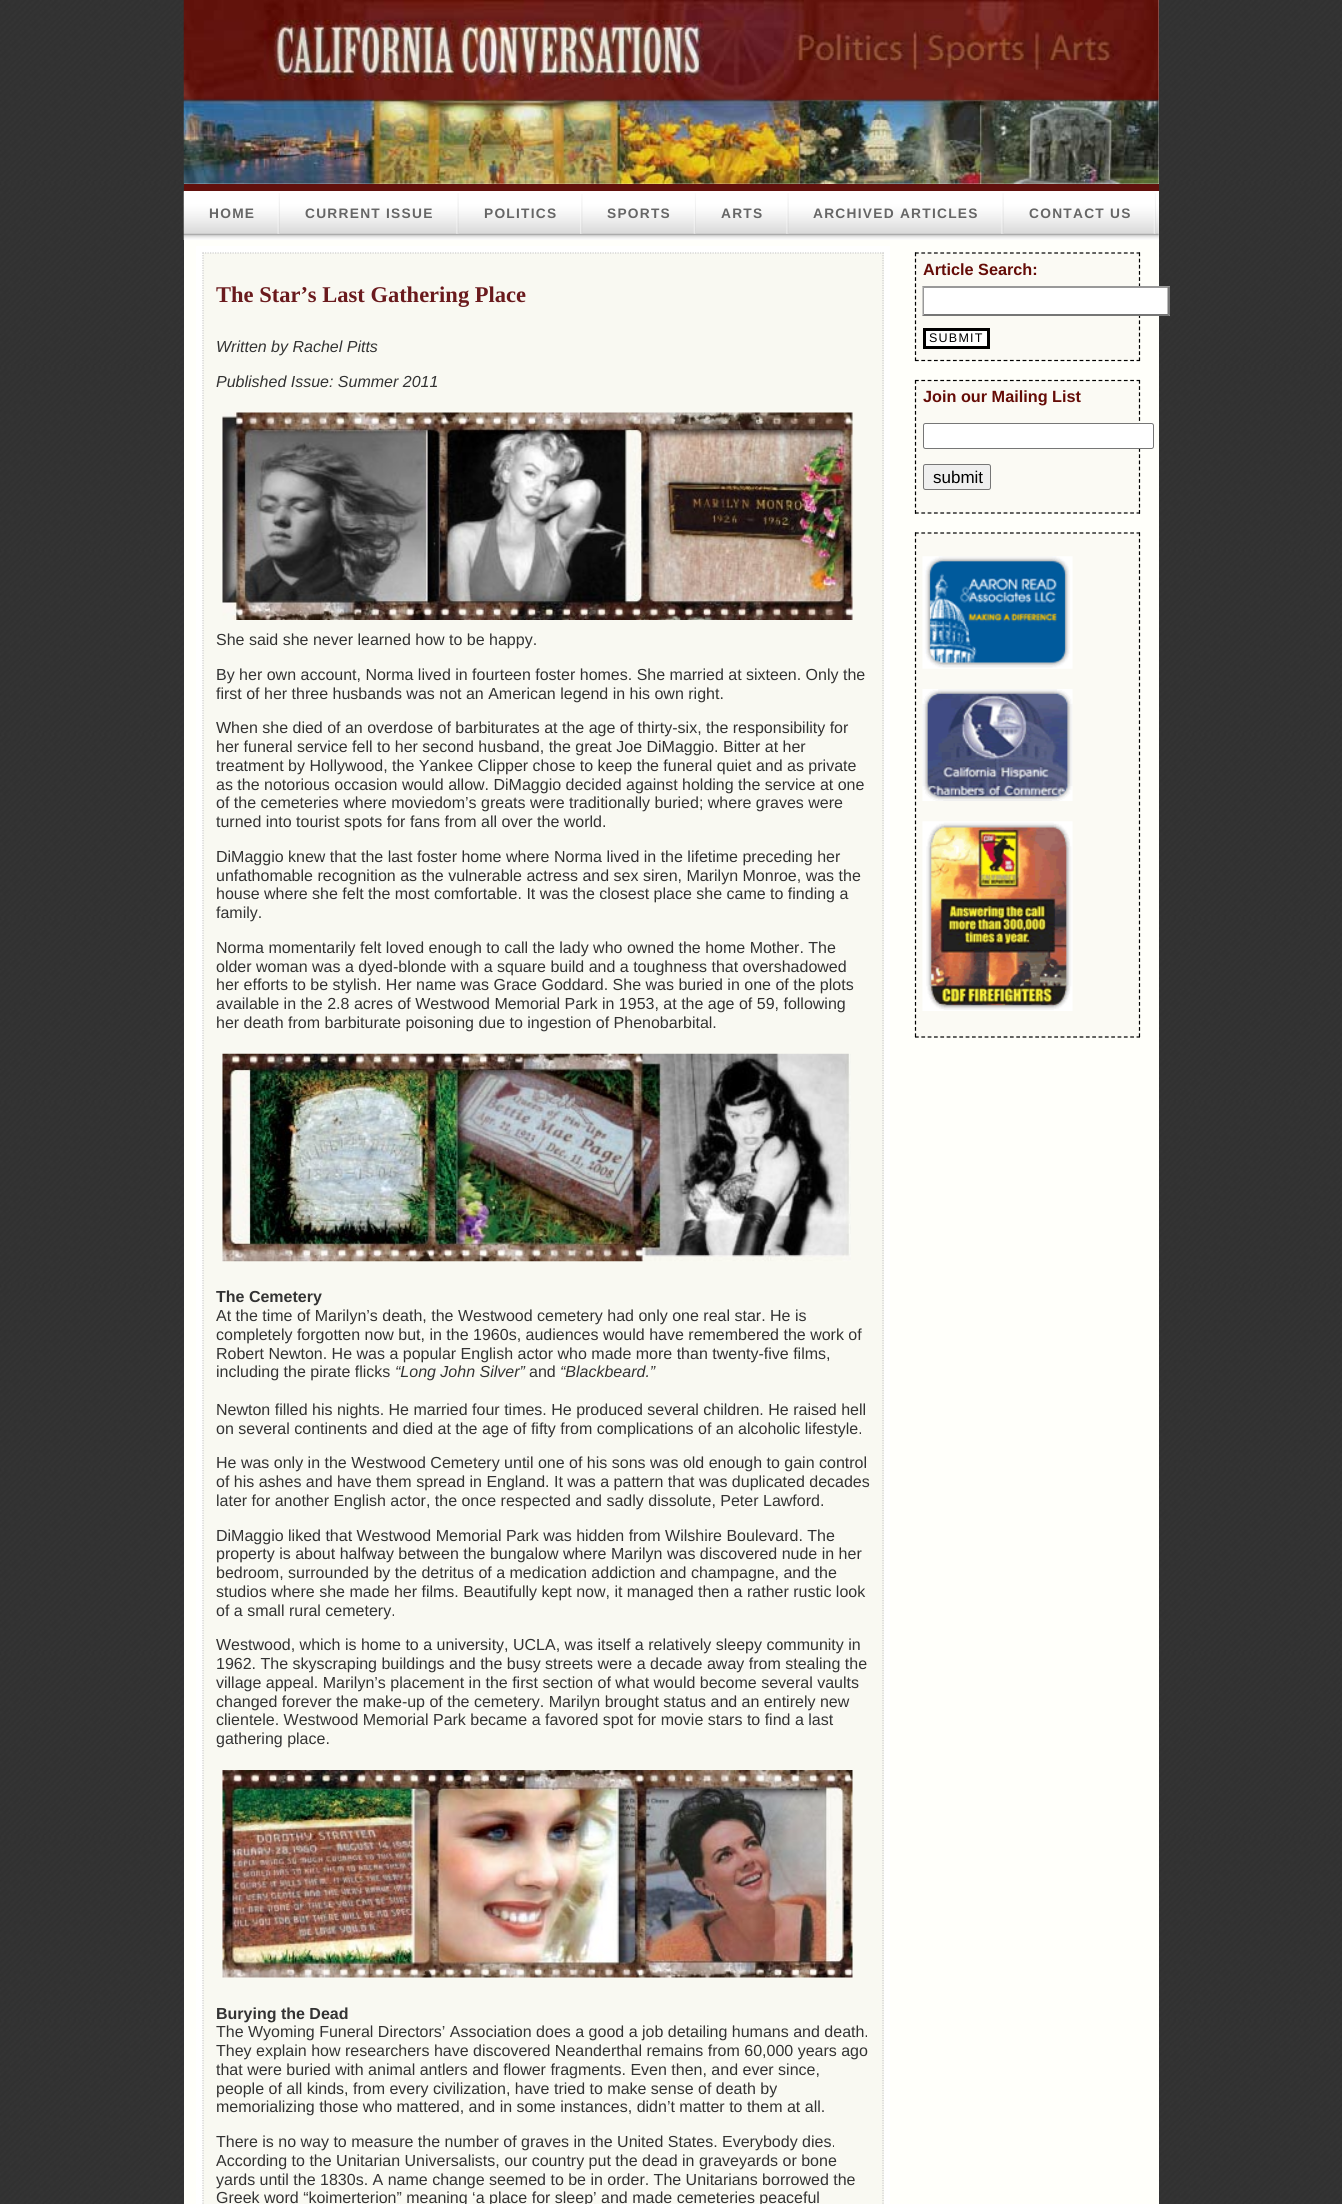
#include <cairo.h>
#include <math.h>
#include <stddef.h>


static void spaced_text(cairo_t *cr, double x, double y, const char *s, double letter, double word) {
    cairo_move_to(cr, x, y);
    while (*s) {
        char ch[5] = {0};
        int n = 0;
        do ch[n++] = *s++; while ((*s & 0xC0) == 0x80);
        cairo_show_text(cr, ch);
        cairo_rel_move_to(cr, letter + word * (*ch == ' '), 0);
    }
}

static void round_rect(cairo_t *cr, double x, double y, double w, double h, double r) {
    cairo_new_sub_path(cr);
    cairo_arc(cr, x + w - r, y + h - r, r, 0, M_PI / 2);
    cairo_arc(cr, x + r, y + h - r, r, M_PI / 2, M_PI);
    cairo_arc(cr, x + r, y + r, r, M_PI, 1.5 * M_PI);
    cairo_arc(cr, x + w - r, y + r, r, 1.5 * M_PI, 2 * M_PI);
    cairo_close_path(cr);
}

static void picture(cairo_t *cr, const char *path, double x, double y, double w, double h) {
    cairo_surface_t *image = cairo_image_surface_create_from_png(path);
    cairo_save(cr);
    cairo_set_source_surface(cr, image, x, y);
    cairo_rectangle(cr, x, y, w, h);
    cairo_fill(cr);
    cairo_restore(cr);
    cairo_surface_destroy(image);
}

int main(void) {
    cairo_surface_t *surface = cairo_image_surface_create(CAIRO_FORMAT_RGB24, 1342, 2204);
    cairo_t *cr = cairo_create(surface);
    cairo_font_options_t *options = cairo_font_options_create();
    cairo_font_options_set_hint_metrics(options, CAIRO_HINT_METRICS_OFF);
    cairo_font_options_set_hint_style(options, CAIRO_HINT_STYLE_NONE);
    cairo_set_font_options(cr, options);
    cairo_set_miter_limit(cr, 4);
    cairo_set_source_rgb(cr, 1, 1, 1);
    cairo_paint(cr);
    picture(cr, "img1.png", 0, 0, 1342, 2204);
    cairo_set_source_rgb(cr, 1, 1, 1);
    cairo_rectangle(cr, 184, 0, 975, 184);
    cairo_fill(cr);
    picture(cr, "img2.png", 183, 0, 976, 184);
    cairo_rectangle(cr, 184, 191, 975, 43);
    cairo_fill(cr);
    cairo_set_source_rgb(cr, 1, 1, 0.98);
    cairo_rectangle(cr, 184, 234, 975, 1970);
    cairo_fill(cr);
    picture(cr, "img3.png", 183, 191, 976, 49);
    cairo_set_source_rgb(cr, 0.38, 0.063, 0.047);
    cairo_rectangle(cr, 184, 184, 975, 7);
    cairo_fill(cr);
    picture(cr, "img4.png", 277, 193, 3, 41);
    cairo_select_font_face(cr, "Liberation Sans", CAIRO_FONT_SLANT_NORMAL, CAIRO_FONT_WEIGHT_BOLD);
    cairo_set_font_size(cr, 13.75);
    cairo_set_source_rgb(cr, 0.4, 0.4, 0.4);
    spaced_text(cr, 209, 218, "HOME", 1.25, 0);
    picture(cr, "img5.png", 456, 193, 3, 41);
    spaced_text(cr, 305, 218, "CURRENT ISSUE", 1.25, 0);
    picture(cr, "img6.png", 580, 194, 3, 40);
    spaced_text(cr, 484, 218, "POLITICS", 1.25, 0);
    picture(cr, "img7.png", 693, 193, 3, 41);
    spaced_text(cr, 607, 218, "SPORTS", 1.25, 0);
    picture(cr, "img5.png", 786, 193, 3, 41);
    spaced_text(cr, 721, 218, "ARTS", 1.25, 0);
    picture(cr, "img5.png", 1001, 193, 3, 41);
    spaced_text(cr, 813, 218, "ARCHIVED ARTICLES", 1.25, 0);
    picture(cr, "img7.png", 1153, 193, 3, 41);
    spaced_text(cr, 1029, 218, "CONTACT US", 1.25, 0);
    cairo_set_source_rgb(cr, 1, 1, 1);
    cairo_rectangle(cr, 196, 246, 694, 1958);
    cairo_fill(cr);
    cairo_set_source_rgb(cr, 0.976, 0.973, 0.949);
    cairo_rectangle(cr, 203, 253, 681, 1951);
    cairo_fill(cr);
    cairo_new_path(cr);
    cairo_move_to(cr, 202.5, 253);
    cairo_line_to(cr, 884, 253);
    cairo_set_source_rgb(cr, 0.8, 0.8, 0.8);
    cairo_set_line_width(cr, 1.2);
    cairo_set_dash(cr, (double[]){1.25, 1.25}, 2, 0);
    cairo_stroke(cr);
    cairo_new_path(cr);
    cairo_move_to(cr, 883, 252.5);
    cairo_line_to(cr, 883, 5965);
    cairo_stroke(cr);
    cairo_new_path(cr);
    cairo_move_to(cr, 203, 252.5);
    cairo_line_to(cr, 203, 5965);
    cairo_stroke(cr);
    cairo_select_font_face(cr, "Liberation Serif", CAIRO_FONT_SLANT_NORMAL, CAIRO_FONT_WEIGHT_BOLD);
    cairo_set_font_size(cr, 22.5);
    cairo_set_source_rgb(cr, 0.416, 0.102, 0.114);
    cairo_move_to(cr, 216, 302);
    cairo_show_text(cr, "The Star’s Last Gathering Place");
    cairo_select_font_face(cr, "Liberation Sans", CAIRO_FONT_SLANT_ITALIC, CAIRO_FONT_WEIGHT_NORMAL);
    cairo_set_font_size(cr, 16);
    cairo_set_source_rgb(cr, 0.2, 0.2, 0.2);
    cairo_move_to(cr, 216, 352);
    cairo_show_text(cr, "Written by Rachel Pitts");
    cairo_move_to(cr, 216, 387);
    cairo_show_text(cr, "Published Issue: Summer 2011");
    picture(cr, "img8.png", 222, 412, 631, 208);
    cairo_select_font_face(cr, "Liberation Sans", CAIRO_FONT_SLANT_NORMAL, CAIRO_FONT_WEIGHT_NORMAL);
    cairo_move_to(cr, 216, 645);
    cairo_show_text(cr, "She said she never learned how to be happy.");
    cairo_move_to(cr, 216, 680);
    cairo_show_text(cr, "By her own account, Norma lived in fourteen foster homes. She married at sixteen. Only the");
    cairo_move_to(cr, 216, 699);
    cairo_show_text(cr, "first of her three husbands was not an American legend in his own right.");
    cairo_move_to(cr, 216, 733);
    cairo_show_text(cr, "When she died of an overdose of barbiturates at the age of thirty-six, the responsibility for");
    cairo_move_to(cr, 216, 752);
    cairo_show_text(cr, "her funeral service fell to her second husband, the great Joe DiMaggio. Bitter at her");
    cairo_move_to(cr, 216, 771);
    cairo_show_text(cr, "treatment by Hollywood, the Yankee Clipper chose to keep the funeral quiet and as private");
    cairo_move_to(cr, 216, 790);
    cairo_show_text(cr, "as the notorious occasion would allow. DiMaggio decided against holding the service at one");
    cairo_move_to(cr, 216, 808);
    cairo_show_text(cr, "of the cemeteries where moviedom’s greats were traditionally buried; where graves were");
    cairo_move_to(cr, 216, 827);
    cairo_show_text(cr, "turned into tourist spots for fans from all over the world.");
    cairo_move_to(cr, 216, 862);
    cairo_show_text(cr, "DiMaggio knew that the last foster home where Norma lived in the lifetime preceding her");
    cairo_move_to(cr, 216, 881);
    cairo_show_text(cr, "unfathomable recognition as the vulnerable actress and sex siren, Marilyn Monroe, was the");
    cairo_move_to(cr, 216, 899);
    cairo_show_text(cr, "house where she felt the most comfortable. It was the closest place she came to finding a");
    cairo_move_to(cr, 216, 918);
    cairo_show_text(cr, "family.");
    cairo_move_to(cr, 216, 953);
    cairo_show_text(cr, "Norma momentarily felt loved enough to call the lady who owned the home Mother. The");
    cairo_move_to(cr, 216, 972);
    cairo_show_text(cr, "older woman was a dyed-blonde with a square build and a toughness that overshadowed");
    cairo_move_to(cr, 216, 990);
    cairo_show_text(cr, "her efforts to be stylish. Her name was Grace Goddard. She was buried in one of the plots");
    cairo_move_to(cr, 216, 1009);
    cairo_show_text(cr, "available in the 2.8 acres of Westwood Memorial Park in 1953, at the age of 59, following");
    cairo_move_to(cr, 216, 1028);
    cairo_show_text(cr, "her death from barbiturate poisoning due to ingestion of Phenobarbital.");
    picture(cr, "img9.png", 222, 1053, 629, 209);
    cairo_select_font_face(cr, "Liberation Sans", CAIRO_FONT_SLANT_NORMAL, CAIRO_FONT_WEIGHT_BOLD);
    cairo_move_to(cr, 216, 1302);
    cairo_show_text(cr, "The Cemetery");
    cairo_select_font_face(cr, "Liberation Sans", CAIRO_FONT_SLANT_NORMAL, CAIRO_FONT_WEIGHT_NORMAL);
    cairo_move_to(cr, 216, 1321);
    cairo_show_text(cr, "At the time of Marilyn’s death, the Westwood cemetery had only one real star. He is");
    cairo_move_to(cr, 216, 1340);
    cairo_show_text(cr, "completely forgotten now but, in the 1960s, audiences would have remembered the work of");
    cairo_move_to(cr, 216, 1359);
    cairo_show_text(cr, "Robert Newton. He was a popular English actor who made more than twenty-five films,");
    cairo_move_to(cr, 216, 1377);
    cairo_show_text(cr, "including the pirate flicks");
    cairo_select_font_face(cr, "Liberation Sans", CAIRO_FONT_SLANT_ITALIC, CAIRO_FONT_WEIGHT_NORMAL);
    cairo_move_to(cr, 395, 1377);
    cairo_show_text(cr, "“Long John Silver”");
    cairo_select_font_face(cr, "Liberation Sans", CAIRO_FONT_SLANT_NORMAL, CAIRO_FONT_WEIGHT_NORMAL);
    cairo_move_to(cr, 529, 1377);
    cairo_show_text(cr, "and");
    cairo_select_font_face(cr, "Liberation Sans", CAIRO_FONT_SLANT_ITALIC, CAIRO_FONT_WEIGHT_NORMAL);
    cairo_move_to(cr, 560, 1377);
    cairo_show_text(cr, "“Blackbeard.”");
    cairo_select_font_face(cr, "Liberation Sans", CAIRO_FONT_SLANT_NORMAL, CAIRO_FONT_WEIGHT_NORMAL);
    cairo_move_to(cr, 216, 1415);
    cairo_show_text(cr, "Newton filled his nights. He married four times. He produced several children. He raised hell");
    cairo_move_to(cr, 216, 1434);
    cairo_show_text(cr, "on several continents and died at the age of fifty from complications of an alcoholic lifestyle.");
    cairo_move_to(cr, 216, 1468);
    cairo_show_text(cr, "He was only in the Westwood Cemetery until one of his sons was old enough to gain control");
    cairo_move_to(cr, 216, 1487);
    cairo_show_text(cr, "of his ashes and have them spread in England. It was a pattern that was duplicated decades");
    cairo_move_to(cr, 216, 1506);
    cairo_show_text(cr, "later for another English actor, the once respected and sadly dissolute, Peter Lawford.");
    cairo_move_to(cr, 216, 1541);
    cairo_show_text(cr, "DiMaggio liked that Westwood Memorial Park was hidden from Wilshire Boulevard. The");
    cairo_move_to(cr, 216, 1559);
    cairo_show_text(cr, "property is about halfway between the bungalow where Marilyn was discovered nude in her");
    cairo_move_to(cr, 216, 1578);
    cairo_show_text(cr, "bedroom, surrounded by the detritus of a medication addiction and champagne, and the");
    cairo_move_to(cr, 216, 1597);
    cairo_show_text(cr, "studios where she made her films. Beautifully kept now, it managed then a rather rustic look");
    cairo_move_to(cr, 216, 1616);
    cairo_show_text(cr, "of a small rural cemetery.");
    cairo_move_to(cr, 216, 1650);
    cairo_show_text(cr, "Westwood, which is home to a university, UCLA, was itself a relatively sleepy community in");
    cairo_move_to(cr, 216, 1669);
    cairo_show_text(cr, "1962. The skyscraping buildings and the busy streets were a decade away from stealing the");
    cairo_move_to(cr, 216, 1688);
    cairo_show_text(cr, "village appeal. Marilyn’s placement in the first section of what would become several vaults");
    cairo_move_to(cr, 216, 1707);
    cairo_show_text(cr, "changed forever the make-up of the cemetery. Marilyn brought status and an entirely new");
    cairo_move_to(cr, 216, 1725);
    cairo_show_text(cr, "clientele. Westwood Memorial Park became a favored spot for movie stars to find a last");
    cairo_move_to(cr, 216, 1744);
    cairo_show_text(cr, "gathering place.");
    picture(cr, "img10.png", 222, 1770, 631, 208);
    cairo_select_font_face(cr, "Liberation Sans", CAIRO_FONT_SLANT_NORMAL, CAIRO_FONT_WEIGHT_BOLD);
    cairo_move_to(cr, 216, 2019);
    cairo_show_text(cr, "Burying the Dead");
    cairo_select_font_face(cr, "Liberation Sans", CAIRO_FONT_SLANT_NORMAL, CAIRO_FONT_WEIGHT_NORMAL);
    cairo_move_to(cr, 216, 2037);
    cairo_show_text(cr, "The Wyoming Funeral Directors’ Association does a good a job detailing humans and death.");
    cairo_move_to(cr, 216, 2056);
    cairo_show_text(cr, "They explain how researchers have discovered Neanderthal remains from 60,000 years ago");
    cairo_move_to(cr, 216, 2075);
    cairo_show_text(cr, "that were buried with animal antlers and flower fragments. Even then, and ever since,");
    cairo_move_to(cr, 216, 2094);
    cairo_show_text(cr, "people of all kinds, from every civilization, have tried to make sense of death by");
    cairo_move_to(cr, 216, 2112);
    cairo_show_text(cr, "memorializing those who mattered, and in some instances, didn’t matter to them at all.");
    cairo_move_to(cr, 216, 2147);
    cairo_show_text(cr, "There is no way to measure the number of graves in the United States. Everybody dies.");
    cairo_move_to(cr, 216, 2166);
    cairo_show_text(cr, "According to the Unitarian Universalists, our country put the dead in graveyards or bone");
    cairo_move_to(cr, 216, 2185);
    cairo_show_text(cr, "yards until the 1830s. A name change seemed to be in order. The Unitarians borrowed the");
    cairo_move_to(cr, 216, 2203);
    cairo_show_text(cr, "Greek word “koimerterion” meaning ‘a place for sleep’ and made cemeteries peaceful");
    cairo_set_source_rgb(cr, 0.984, 0.98, 0.957);
    cairo_rectangle(cr, 915, 253, 225, 108);
    cairo_fill(cr);
    cairo_new_path(cr);
    cairo_move_to(cr, 915, 253);
    cairo_line_to(cr, 1140, 253);
    cairo_set_source_rgb(cr, 0, 0, 0);
    cairo_set_dash(cr, (double[]){3.75, 2.58}, 2, 0);
    cairo_stroke(cr);
    cairo_new_path(cr);
    cairo_move_to(cr, 1139.5, 252.5);
    cairo_line_to(cr, 1139.5, 361);
    cairo_set_dash(cr, (double[]){3.75, 2.42}, 2, 0);
    cairo_stroke(cr);
    cairo_new_path(cr);
    cairo_move_to(cr, 915, 360.5);
    cairo_line_to(cr, 1140, 360.5);
    cairo_set_dash(cr, (double[]){3.75, 2.58}, 2, 0);
    cairo_stroke(cr);
    cairo_new_path(cr);
    cairo_move_to(cr, 915.5, 252.5);
    cairo_line_to(cr, 915.5, 361);
    cairo_set_dash(cr, (double[]){3.75, 2.42}, 2, 0);
    cairo_stroke(cr);
    cairo_select_font_face(cr, "Liberation Sans", CAIRO_FONT_SLANT_NORMAL, CAIRO_FONT_WEIGHT_BOLD);
    cairo_set_font_size(cr, 16.25);
    cairo_set_source_rgb(cr, 0.396, 0.047, 0.031);
    cairo_move_to(cr, 923, 275);
    cairo_show_text(cr, "Article Search:");
    cairo_set_source_rgb(cr, 1, 1, 1);
    cairo_rectangle(cr, 923, 286, 247, 30);
    cairo_fill(cr);
    cairo_set_source_rgb(cr, 0.6, 0.6, 0.6);
    cairo_new_path(cr);
    cairo_move_to(cr, 922, 286);
    cairo_line_to(cr, 1170, 286);
    cairo_line_to(cr, 1168, 288);
    cairo_line_to(cr, 924, 288);
    cairo_close_path(cr);
    cairo_fill(cr);
    cairo_set_source_rgb(cr, 0.463, 0.463, 0.463);
    cairo_new_path(cr);
    cairo_move_to(cr, 1170, 286);
    cairo_line_to(cr, 1170, 316);
    cairo_line_to(cr, 1167.5, 314);
    cairo_line_to(cr, 1167.5, 287.5);
    cairo_close_path(cr);
    cairo_fill(cr);
    cairo_new_path(cr);
    cairo_move_to(cr, 1170, 316);
    cairo_line_to(cr, 922, 316);
    cairo_line_to(cr, 924, 314);
    cairo_line_to(cr, 1168, 314);
    cairo_close_path(cr);
    cairo_fill(cr);
    cairo_set_source_rgb(cr, 0.6, 0.6, 0.6);
    cairo_new_path(cr);
    cairo_move_to(cr, 922.5, 316);
    cairo_line_to(cr, 922.5, 286);
    cairo_line_to(cr, 924, 287.5);
    cairo_line_to(cr, 924, 314);
    cairo_close_path(cr);
    cairo_fill(cr);
    cairo_set_source_rgb(cr, 1, 1, 1);
    cairo_rectangle(cr, 924.5, 329.5, 64, 18);
    cairo_fill_preserve(cr);
    cairo_set_source_rgb(cr, 0, 0, 0);
    cairo_set_line_width(cr, 3);
    cairo_set_dash(cr, NULL, 0, 0);
    cairo_stroke(cr);
    cairo_select_font_face(cr, "Liberation Sans", CAIRO_FONT_SLANT_NORMAL, CAIRO_FONT_WEIGHT_NORMAL);
    cairo_set_font_size(cr, 12.5);
    spaced_text(cr, 929, 342, "SUBMIT", 1.25, 0);
    cairo_set_source_rgb(cr, 0.984, 0.98, 0.957);
    cairo_rectangle(cr, 915, 380, 225, 134);
    cairo_fill(cr);
    cairo_new_path(cr);
    cairo_move_to(cr, 915, 380.5);
    cairo_line_to(cr, 1140, 380.5);
    cairo_set_source_rgb(cr, 0, 0, 0);
    cairo_set_line_width(cr, 1.2);
    cairo_set_dash(cr, (double[]){3.75, 2.58}, 2, 0);
    cairo_stroke(cr);
    cairo_new_path(cr);
    cairo_move_to(cr, 1139.5, 380);
    cairo_line_to(cr, 1139.5, 514);
    cairo_set_dash(cr, (double[]){3.75, 2.44}, 2, 0);
    cairo_stroke(cr);
    cairo_new_path(cr);
    cairo_move_to(cr, 915, 513);
    cairo_line_to(cr, 1140, 513);
    cairo_set_dash(cr, (double[]){3.75, 2.58}, 2, 0);
    cairo_stroke(cr);
    cairo_new_path(cr);
    cairo_move_to(cr, 915.5, 380);
    cairo_line_to(cr, 915.5, 514);
    cairo_set_dash(cr, (double[]){3.75, 2.44}, 2, 0);
    cairo_stroke(cr);
    cairo_select_font_face(cr, "Liberation Sans", CAIRO_FONT_SLANT_NORMAL, CAIRO_FONT_WEIGHT_BOLD);
    cairo_set_font_size(cr, 16.25);
    cairo_set_source_rgb(cr, 0.396, 0.047, 0.031);
    cairo_move_to(cr, 923, 402);
    cairo_show_text(cr, "Join our Mailing List");
    cairo_set_source_rgb(cr, 1, 1, 1);
    round_rect(cr, 923.5, 423.5, 230, 25, 2);
    cairo_fill_preserve(cr);
    cairo_set_source_rgb(cr, 0.463, 0.463, 0.463);
    cairo_set_line_width(cr, 1);
    cairo_set_dash(cr, NULL, 0, 0);
    cairo_stroke(cr);
    cairo_set_source_rgb(cr, 0.937, 0.937, 0.937);
    round_rect(cr, 923.5, 464.5, 67, 25, 2);
    cairo_fill_preserve(cr);
    cairo_set_source_rgb(cr, 0.463, 0.463, 0.463);
    cairo_stroke(cr);
    cairo_select_font_face(cr, "Liberation Sans", CAIRO_FONT_SLANT_NORMAL, CAIRO_FONT_WEIGHT_NORMAL);
    cairo_set_font_size(cr, 17);
    cairo_set_source_rgb(cr, 0, 0, 0);
    cairo_move_to(cr, 933, 483);
    cairo_show_text(cr, "submit");
    cairo_set_source_rgb(cr, 0.984, 0.98, 0.957);
    cairo_rectangle(cr, 915, 533, 225, 505);
    cairo_fill(cr);
    cairo_new_path(cr);
    cairo_move_to(cr, 915, 533);
    cairo_line_to(cr, 1140, 533);
    cairo_set_source_rgb(cr, 0, 0, 0);
    cairo_set_line_width(cr, 1.2);
    cairo_set_dash(cr, (double[]){3.75, 2.58}, 2, 0);
    cairo_stroke(cr);
    cairo_new_path(cr);
    cairo_move_to(cr, 1139.5, 532.5);
    cairo_line_to(cr, 1139.5, 1037.5);
    cairo_set_dash(cr, (double[]){3.75, 2.51}, 2, 0);
    cairo_stroke(cr);
    cairo_new_path(cr);
    cairo_move_to(cr, 915, 1037);
    cairo_line_to(cr, 1140, 1037);
    cairo_set_dash(cr, (double[]){3.75, 2.58}, 2, 0);
    cairo_stroke(cr);
    cairo_new_path(cr);
    cairo_move_to(cr, 915.5, 532.5);
    cairo_line_to(cr, 915.5, 1037.5);
    cairo_set_dash(cr, (double[]){3.75, 2.51}, 2, 0);
    cairo_stroke(cr);
    picture(cr, "img11.png", 922, 556, 151, 113);
    picture(cr, "img12.png", 922, 689, 151, 112);
    picture(cr, "img13.png", 922, 821, 151, 190);
    cairo_surface_write_to_png(surface, "page.png");
    cairo_font_options_destroy(options);
    cairo_destroy(cr);
    cairo_surface_destroy(surface);
    return 0;
}
